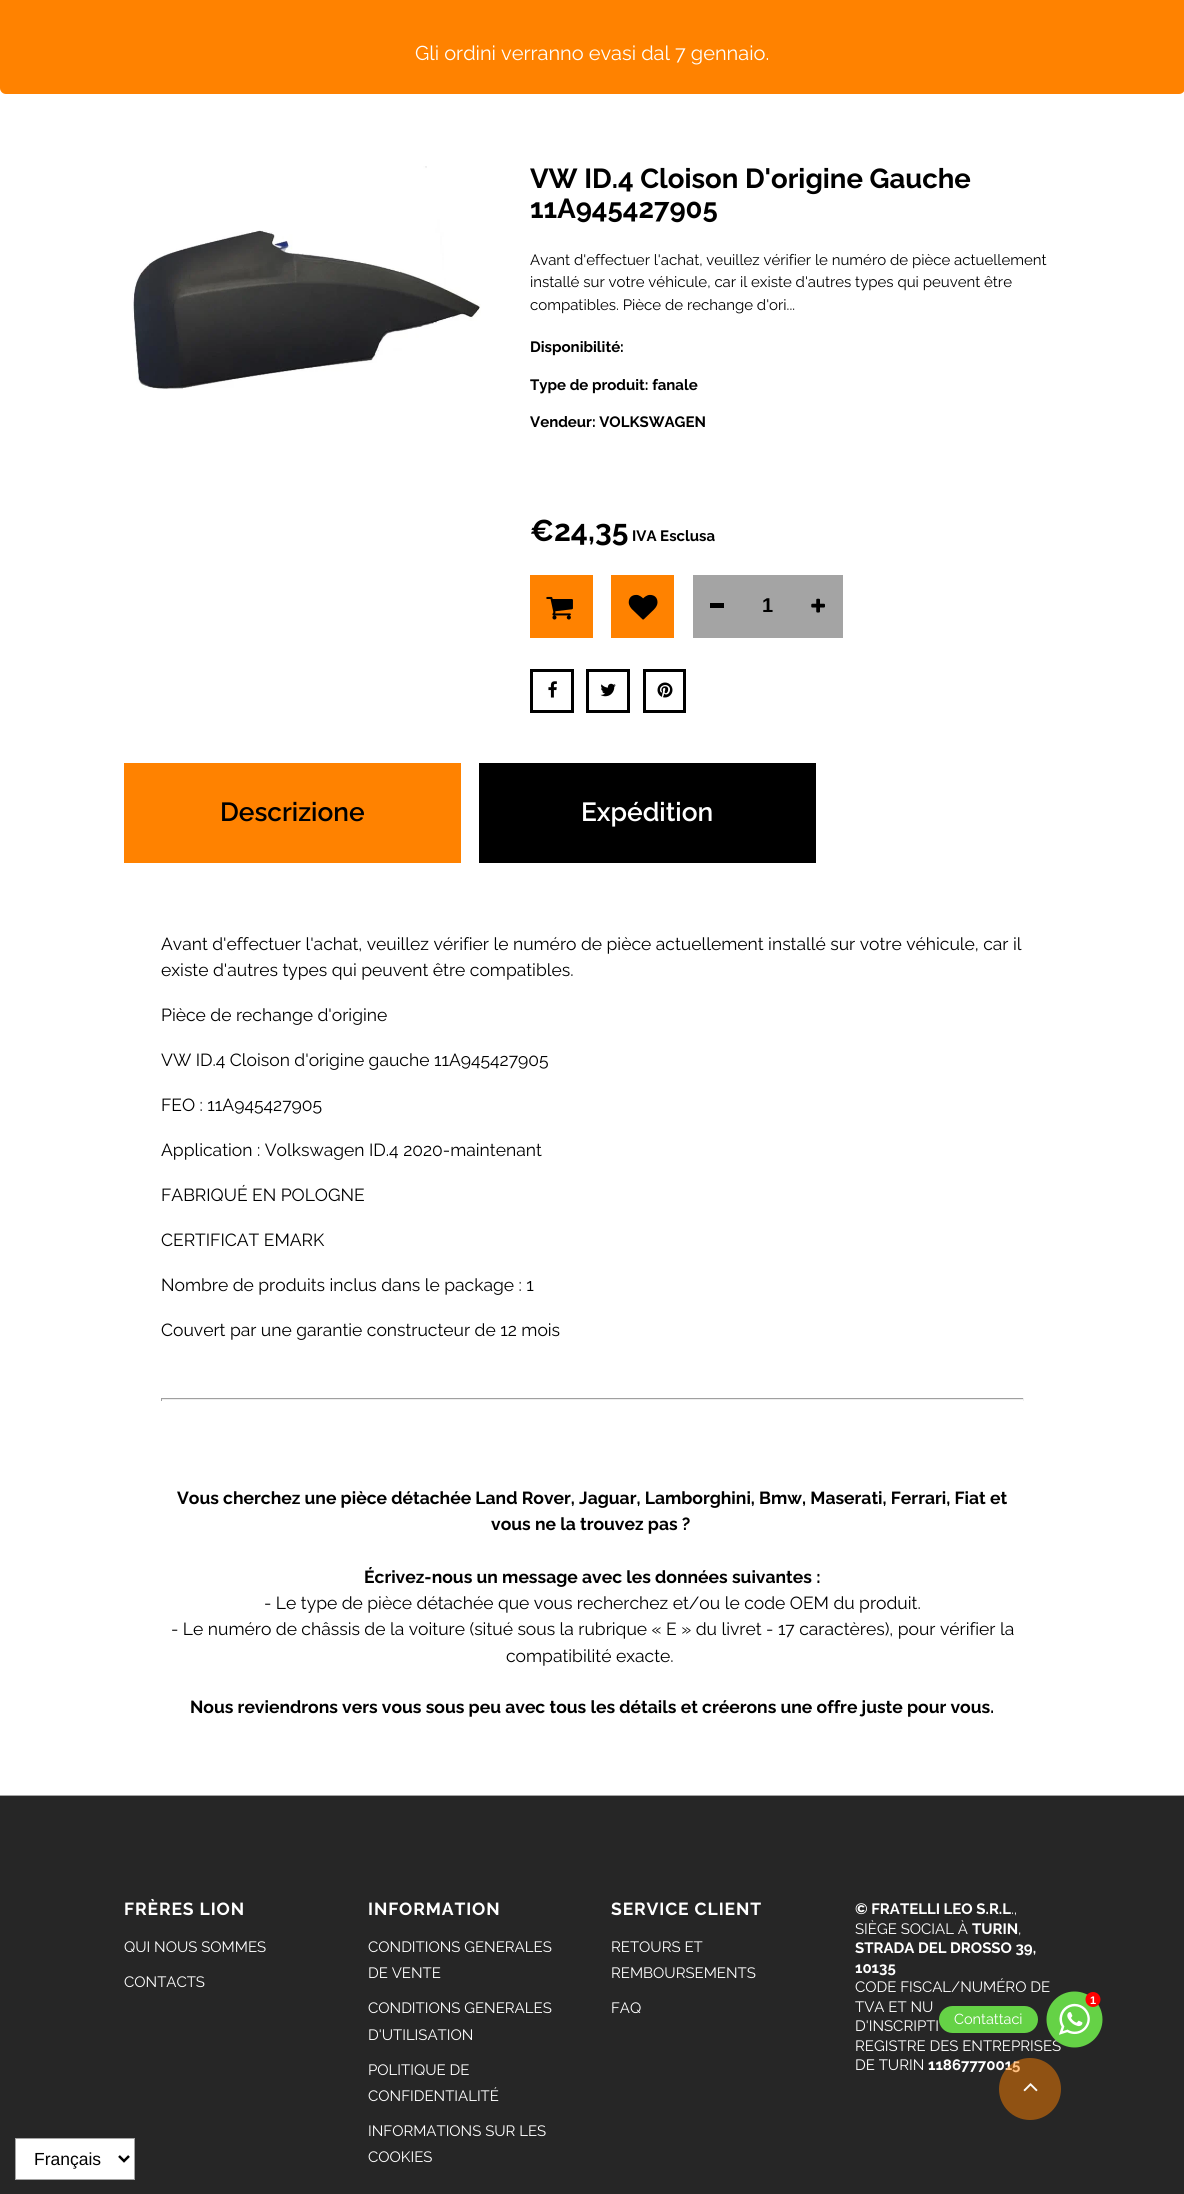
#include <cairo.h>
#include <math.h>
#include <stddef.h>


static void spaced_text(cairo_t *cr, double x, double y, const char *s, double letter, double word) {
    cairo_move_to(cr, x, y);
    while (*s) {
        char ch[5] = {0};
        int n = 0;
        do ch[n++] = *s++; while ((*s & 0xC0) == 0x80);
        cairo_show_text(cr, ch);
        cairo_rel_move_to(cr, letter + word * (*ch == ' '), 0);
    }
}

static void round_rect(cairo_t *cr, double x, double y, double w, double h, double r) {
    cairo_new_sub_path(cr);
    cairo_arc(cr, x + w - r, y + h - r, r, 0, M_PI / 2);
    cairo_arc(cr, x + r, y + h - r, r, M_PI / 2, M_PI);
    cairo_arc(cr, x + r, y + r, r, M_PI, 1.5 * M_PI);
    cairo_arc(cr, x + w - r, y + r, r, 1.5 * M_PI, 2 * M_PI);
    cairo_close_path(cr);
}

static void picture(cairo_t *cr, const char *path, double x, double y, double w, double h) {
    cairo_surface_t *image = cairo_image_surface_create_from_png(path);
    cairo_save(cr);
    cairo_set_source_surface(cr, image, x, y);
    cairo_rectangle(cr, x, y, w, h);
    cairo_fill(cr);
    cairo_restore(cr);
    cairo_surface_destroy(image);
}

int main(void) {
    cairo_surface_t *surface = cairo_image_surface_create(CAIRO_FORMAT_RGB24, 1184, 2194);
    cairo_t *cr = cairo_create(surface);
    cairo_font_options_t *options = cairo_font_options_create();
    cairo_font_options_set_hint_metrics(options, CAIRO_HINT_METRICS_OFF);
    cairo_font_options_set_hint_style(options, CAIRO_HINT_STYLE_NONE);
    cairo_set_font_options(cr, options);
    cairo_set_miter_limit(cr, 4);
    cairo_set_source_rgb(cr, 1, 1, 1);
    cairo_paint(cr);
    cairo_set_source_rgb(cr, 1, 0.51, 0);
    round_rect(cr, 0, -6, 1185, 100, 6);
    cairo_fill(cr);
    cairo_select_font_face(cr, "Raleway", CAIRO_FONT_SLANT_NORMAL, CAIRO_FONT_WEIGHT_NORMAL);
    cairo_set_font_size(cr, 20);
    cairo_set_source_rgb(cr, 1, 1, 1);
    cairo_move_to(cr, 415, 60);
    cairo_show_text(cr, "Gli ordini verranno evasi dal 7 gennaio.");
    picture(cr, "img1.png", 132, 166, 349, 224);
    cairo_select_font_face(cr, "Raleway", CAIRO_FONT_SLANT_NORMAL, CAIRO_FONT_WEIGHT_BOLD);
    cairo_set_font_size(cr, 27.5);
    cairo_set_source_rgb(cr, 0, 0, 0);
    cairo_move_to(cr, 530, 188);
    cairo_show_text(cr, "VW ID.4 Cloison D'origine Gauche");
    cairo_move_to(cr, 530, 218);
    cairo_show_text(cr, "11A945427905");
    cairo_select_font_face(cr, "Raleway", CAIRO_FONT_SLANT_NORMAL, CAIRO_FONT_WEIGHT_NORMAL);
    cairo_set_font_size(cr, 15);
    cairo_move_to(cr, 530, 265);
    cairo_show_text(cr, "Avant d'effectuer l'achat, veuillez vérifier le numéro de pièce actuellement");
    cairo_move_to(cr, 530, 287);
    cairo_show_text(cr, "installé sur votre véhicule, car il existe d'autres types qui peuvent être");
    cairo_move_to(cr, 530, 310);
    cairo_show_text(cr, "compatibles. Pièce de rechange d'ori...");
    cairo_select_font_face(cr, "Raleway", CAIRO_FONT_SLANT_NORMAL, CAIRO_FONT_WEIGHT_BOLD);
    cairo_move_to(cr, 530, 352);
    cairo_show_text(cr, "Disponibilité:");
    cairo_move_to(cr, 530, 390);
    cairo_show_text(cr, "Type de produit: fanale");
    cairo_move_to(cr, 530, 427);
    cairo_show_text(cr, "Vendeur: VOLKSWAGEN");
    cairo_set_font_size(cr, 30);
    cairo_move_to(cr, 530, 541);
    cairo_show_text(cr, "€24,35");
    cairo_set_font_size(cr, 15);
    cairo_move_to(cr, 632, 541);
    cairo_show_text(cr, "IVA Esclusa");
    cairo_set_source_rgb(cr, 1, 0.51, 0);
    cairo_rectangle(cr, 530, 575, 63, 63);
    cairo_fill(cr);
    picture(cr, "img2.png", 546, 596, 27, 24);
    cairo_rectangle(cr, 611, 575, 63, 63);
    cairo_fill(cr);
    picture(cr, "img3.png", 628, 594, 30, 26);
    cairo_set_source_rgb(cr, 0.643, 0.643, 0.643);
    cairo_rectangle(cr, 693, 575, 150, 63);
    cairo_fill(cr);
    cairo_set_source_rgb(cr, 0, 0, 0);
    cairo_rectangle(cr, 710, 603, 14, 5);
    cairo_fill(cr);
    cairo_select_font_face(cr, "Liberation Sans", CAIRO_FONT_SLANT_NORMAL, CAIRO_FONT_WEIGHT_BOLD);
    cairo_set_font_size(cr, 20);
    cairo_move_to(cr, 762, 612);
    cairo_show_text(cr, "1");
    picture(cr, "img4.png", 811, 598, 14, 15);
    cairo_rectangle(cr, 531.5, 670.5, 41, 41);
    cairo_set_line_width(cr, 3);
    cairo_stroke(cr);
    picture(cr, "img5.png", 548, 681, 9, 17);
    cairo_rectangle(cr, 587.5, 670.5, 41, 41);
    cairo_stroke(cr);
    picture(cr, "img6.png", 600, 683, 16, 14);
    cairo_rectangle(cr, 644.5, 670.5, 40, 41);
    cairo_stroke(cr);
    picture(cr, "img7.png", 657, 682, 16, 16);
    cairo_set_source_rgb(cr, 1, 0.51, 0);
    cairo_rectangle(cr, 124, 763, 337, 100);
    cairo_fill(cr);
    cairo_select_font_face(cr, "Raleway SemiBold", CAIRO_FONT_SLANT_NORMAL, CAIRO_FONT_WEIGHT_NORMAL);
    cairo_set_font_size(cr, 26.25);
    cairo_set_source_rgb(cr, 0, 0, 0);
    cairo_move_to(cr, 220, 821);
    cairo_show_text(cr, "Descrizione");
    cairo_rectangle(cr, 479, 763, 337, 100);
    cairo_fill(cr);
    cairo_set_source_rgb(cr, 1, 1, 1);
    cairo_move_to(cr, 581, 821);
    cairo_show_text(cr, "Expédition");
    cairo_select_font_face(cr, "Raleway", CAIRO_FONT_SLANT_NORMAL, CAIRO_FONT_WEIGHT_NORMAL);
    cairo_set_font_size(cr, 17.5);
    cairo_set_source_rgb(cr, 0, 0, 0);
    cairo_move_to(cr, 161, 950);
    cairo_show_text(cr, "Avant d'effectuer l'achat, veuillez vérifier le numéro de pièce actuellement installé sur votre véhicule, car il");
    cairo_move_to(cr, 161, 976);
    cairo_show_text(cr, "existe d'autres types qui peuvent être compatibles.");
    cairo_move_to(cr, 161, 1021);
    cairo_show_text(cr, "Pièce de rechange d'origine");
    cairo_move_to(cr, 161, 1066);
    cairo_show_text(cr, "VW ID.4 Cloison d'origine gauche 11A945427905");
    cairo_move_to(cr, 161, 1111);
    cairo_show_text(cr, "FEO : 11A945427905");
    cairo_move_to(cr, 161, 1156);
    cairo_show_text(cr, "Application : Volkswagen ID.4 2020-maintenant");
    cairo_move_to(cr, 161, 1201);
    cairo_show_text(cr, "FABRIQUÉ EN POLOGNE");
    cairo_move_to(cr, 161, 1246);
    cairo_show_text(cr, "CERTIFICAT EMARK");
    cairo_move_to(cr, 161, 1291);
    cairo_show_text(cr, "Nombre de produits inclus dans le package : 1");
    cairo_move_to(cr, 161, 1336);
    cairo_show_text(cr, "Couvert par une garantie constructeur de 12 mois");
    cairo_set_source_rgb(cr, 0.624, 0.624, 0.624);
    cairo_rectangle(cr, 161, 1398, 863, 1);
    cairo_fill(cr);
    cairo_set_source_rgb(cr, 0.933, 0.933, 0.933);
    cairo_rectangle(cr, 1023, 1398, 1, 3);
    cairo_fill(cr);
    cairo_rectangle(cr, 161, 1399, 863, 1);
    cairo_fill(cr);
    cairo_set_source_rgb(cr, 0.624, 0.624, 0.624);
    cairo_rectangle(cr, 161, 1398, 1, 3);
    cairo_fill(cr);
    cairo_select_font_face(cr, "Raleway", CAIRO_FONT_SLANT_NORMAL, CAIRO_FONT_WEIGHT_BOLD);
    cairo_set_source_rgb(cr, 0, 0, 0);
    cairo_move_to(cr, 177, 1504);
    cairo_show_text(cr, "Vous cherchez une pièce détachée Land Rover, Jaguar, Lamborghini, Bmw, Maserati, Ferrari, Fiat et");
    cairo_move_to(cr, 491, 1530);
    cairo_show_text(cr, "vous ne la trouvez pas ?");
    cairo_move_to(cr, 364, 1583);
    cairo_show_text(cr, "Écrivez-nous un message avec les données suivantes :");
    cairo_select_font_face(cr, "Raleway", CAIRO_FONT_SLANT_NORMAL, CAIRO_FONT_WEIGHT_NORMAL);
    cairo_move_to(cr, 264, 1609);
    cairo_show_text(cr, "- Le type de pièce détachée que vous recherchez et/ou le code OEM du produit.");
    cairo_move_to(cr, 171, 1635);
    cairo_show_text(cr, "- Le numéro de châssis de la voiture (situé sous la rubrique « E » du livret - 17 caractères), pour vérifier la");
    cairo_move_to(cr, 506, 1662);
    cairo_show_text(cr, "compatibilité exacte.");
    cairo_select_font_face(cr, "Raleway", CAIRO_FONT_SLANT_NORMAL, CAIRO_FONT_WEIGHT_BOLD);
    cairo_move_to(cr, 190, 1713);
    cairo_show_text(cr, "Nous reviendrons vers vous sous peu avec tous les détails et créerons une offre juste pour vous.");
    cairo_set_source_rgb(cr, 0.149, 0.149, 0.149);
    cairo_rectangle(cr, 0, 1796, 1184, 398);
    cairo_fill(cr);
    cairo_set_source_rgb(cr, 0.643, 0.643, 0.643);
    cairo_rectangle(cr, 0, 1795, 1184, 1);
    cairo_fill(cr);
    cairo_set_source_rgb(cr, 1, 1, 1);
    spaced_text(cr, 124, 1915, "FRÈRES LION", 0.9, 0);
    cairo_select_font_face(cr, "Raleway", CAIRO_FONT_SLANT_NORMAL, CAIRO_FONT_WEIGHT_NORMAL);
    cairo_set_font_size(cr, 15);
    cairo_move_to(cr, 124, 1952);
    cairo_show_text(cr, "QUI NOUS SOMMES");
    cairo_move_to(cr, 124, 1987);
    cairo_show_text(cr, "CONTACTS");
    cairo_select_font_face(cr, "Raleway", CAIRO_FONT_SLANT_NORMAL, CAIRO_FONT_WEIGHT_BOLD);
    cairo_set_font_size(cr, 17.5);
    spaced_text(cr, 368, 1915, "INFORMATION", 0.9, 0);
    cairo_select_font_face(cr, "Raleway", CAIRO_FONT_SLANT_NORMAL, CAIRO_FONT_WEIGHT_NORMAL);
    cairo_set_font_size(cr, 15);
    cairo_move_to(cr, 368, 1952);
    cairo_show_text(cr, "CONDITIONS GENERALES");
    cairo_move_to(cr, 368, 1978);
    cairo_show_text(cr, "DE VENTE");
    cairo_move_to(cr, 368, 2013);
    cairo_show_text(cr, "CONDITIONS GENERALES");
    cairo_move_to(cr, 368, 2040);
    cairo_show_text(cr, "D'UTILISATION");
    cairo_move_to(cr, 368, 2075);
    cairo_show_text(cr, "POLITIQUE DE");
    cairo_move_to(cr, 368, 2101);
    cairo_show_text(cr, "CONFIDENTIALITÉ");
    cairo_move_to(cr, 368, 2136);
    cairo_show_text(cr, "INFORMATIONS SUR LES");
    cairo_move_to(cr, 368, 2162);
    cairo_show_text(cr, "COOKIES");
    cairo_select_font_face(cr, "Raleway", CAIRO_FONT_SLANT_NORMAL, CAIRO_FONT_WEIGHT_BOLD);
    cairo_set_font_size(cr, 17.5);
    spaced_text(cr, 611, 1915, "SERVICE CLIENT", 0.9, 0);
    cairo_select_font_face(cr, "Raleway", CAIRO_FONT_SLANT_NORMAL, CAIRO_FONT_WEIGHT_NORMAL);
    cairo_set_font_size(cr, 15);
    cairo_move_to(cr, 611, 1952);
    cairo_show_text(cr, "RETOURS ET");
    cairo_move_to(cr, 611, 1978);
    cairo_show_text(cr, "REMBOURSEMENTS");
    cairo_move_to(cr, 611, 2013);
    cairo_show_text(cr, "FAQ");
    cairo_select_font_face(cr, "Raleway", CAIRO_FONT_SLANT_NORMAL, CAIRO_FONT_WEIGHT_BOLD);
    cairo_move_to(cr, 855, 1914);
    cairo_show_text(cr, "© FRATELLI LEO S.R.L");
    cairo_select_font_face(cr, "Raleway", CAIRO_FONT_SLANT_NORMAL, CAIRO_FONT_WEIGHT_NORMAL);
    cairo_move_to(cr, 1011, 1914);
    cairo_show_text(cr, ".,");
    cairo_move_to(cr, 855, 1934);
    cairo_show_text(cr, "SIÈGE SOCIAL À");
    cairo_select_font_face(cr, "Raleway", CAIRO_FONT_SLANT_NORMAL, CAIRO_FONT_WEIGHT_BOLD);
    cairo_move_to(cr, 972, 1934);
    cairo_show_text(cr, "TURIN");
    cairo_select_font_face(cr, "Raleway", CAIRO_FONT_SLANT_NORMAL, CAIRO_FONT_WEIGHT_NORMAL);
    cairo_move_to(cr, 1018, 1934);
    cairo_show_text(cr, ",");
    cairo_select_font_face(cr, "Raleway", CAIRO_FONT_SLANT_NORMAL, CAIRO_FONT_WEIGHT_BOLD);
    cairo_move_to(cr, 855, 1953);
    cairo_show_text(cr, "STRADA DEL DROSSO 39,");
    cairo_move_to(cr, 855, 1973);
    cairo_show_text(cr, "10135");
    cairo_select_font_face(cr, "Raleway", CAIRO_FONT_SLANT_NORMAL, CAIRO_FONT_WEIGHT_NORMAL);
    cairo_move_to(cr, 855, 1992);
    cairo_show_text(cr, "CODE FISCAL/NUMÉRO DE");
    cairo_move_to(cr, 855, 2012);
    cairo_show_text(cr, "TVA ET NU");
    cairo_move_to(cr, 855, 2031);
    cairo_show_text(cr, "D'INSCRIPTI");
    cairo_move_to(cr, 855, 2051);
    cairo_show_text(cr, "REGISTRE DES ENTREPRISES");
    cairo_move_to(cr, 855, 2070);
    cairo_show_text(cr, "DE TURIN");
    cairo_select_font_face(cr, "Raleway", CAIRO_FONT_SLANT_NORMAL, CAIRO_FONT_WEIGHT_BOLD);
    cairo_move_to(cr, 928, 2070);
    cairo_show_text(cr, "11867770015");
    cairo_set_source_rgba(cr, 1, 0.51, 0, 0.49);
    cairo_new_path(cr);
    cairo_arc(cr, 1030, 2089, 31, 0, 2 * M_PI);
    cairo_fill(cr);
    picture(cr, "img8.png", 1023, 2083, 15, 9);
    cairo_set_source_rgb(cr, 1, 1, 1);
    cairo_rectangle(cr, 15.5, 2138.5, 119, 41);
    cairo_fill_preserve(cr);
    cairo_set_source_rgb(cr, 0.643, 0.643, 0.643);
    cairo_set_line_width(cr, 1);
    cairo_stroke(cr);
    cairo_new_path(cr);
    cairo_move_to(cr, 119, 2156);
    cairo_line_to(cr, 124, 2161);
    cairo_line_to(cr, 129, 2156);
    cairo_set_source_rgb(cr, 0, 0, 0);
    cairo_set_line_width(cr, 2.5);
    cairo_stroke(cr);
    cairo_select_font_face(cr, "Liberation Sans", CAIRO_FONT_SLANT_NORMAL, CAIRO_FONT_WEIGHT_NORMAL);
    cairo_set_font_size(cr, 17.5);
    cairo_move_to(cr, 34, 2165);
    cairo_show_text(cr, "Français");
    picture(cr, "img9.png", 1046, 1991, 57, 57);
    cairo_select_font_face(cr, "Liberation Sans", CAIRO_FONT_SLANT_NORMAL, CAIRO_FONT_WEIGHT_BOLD);
    cairo_set_font_size(cr, 11);
    cairo_set_source_rgb(cr, 1, 1, 1);
    cairo_move_to(cr, 1090, 2004);
    cairo_show_text(cr, "1");
    cairo_set_source_rgb(cr, 0.396, 0.824, 0.275);
    round_rect(cr, 939, 2006, 99, 27, 13.5);
    cairo_fill(cr);
    cairo_select_font_face(cr, "Raleway", CAIRO_FONT_SLANT_NORMAL, CAIRO_FONT_WEIGHT_NORMAL);
    cairo_set_font_size(cr, 14.5);
    cairo_set_source_rgb(cr, 1, 1, 1);
    cairo_move_to(cr, 954, 2024);
    cairo_show_text(cr, "Contattaci");
    cairo_surface_write_to_png(surface, "page.png");
    cairo_font_options_destroy(options);
    cairo_destroy(cr);
    cairo_surface_destroy(surface);
    return 0;
}
